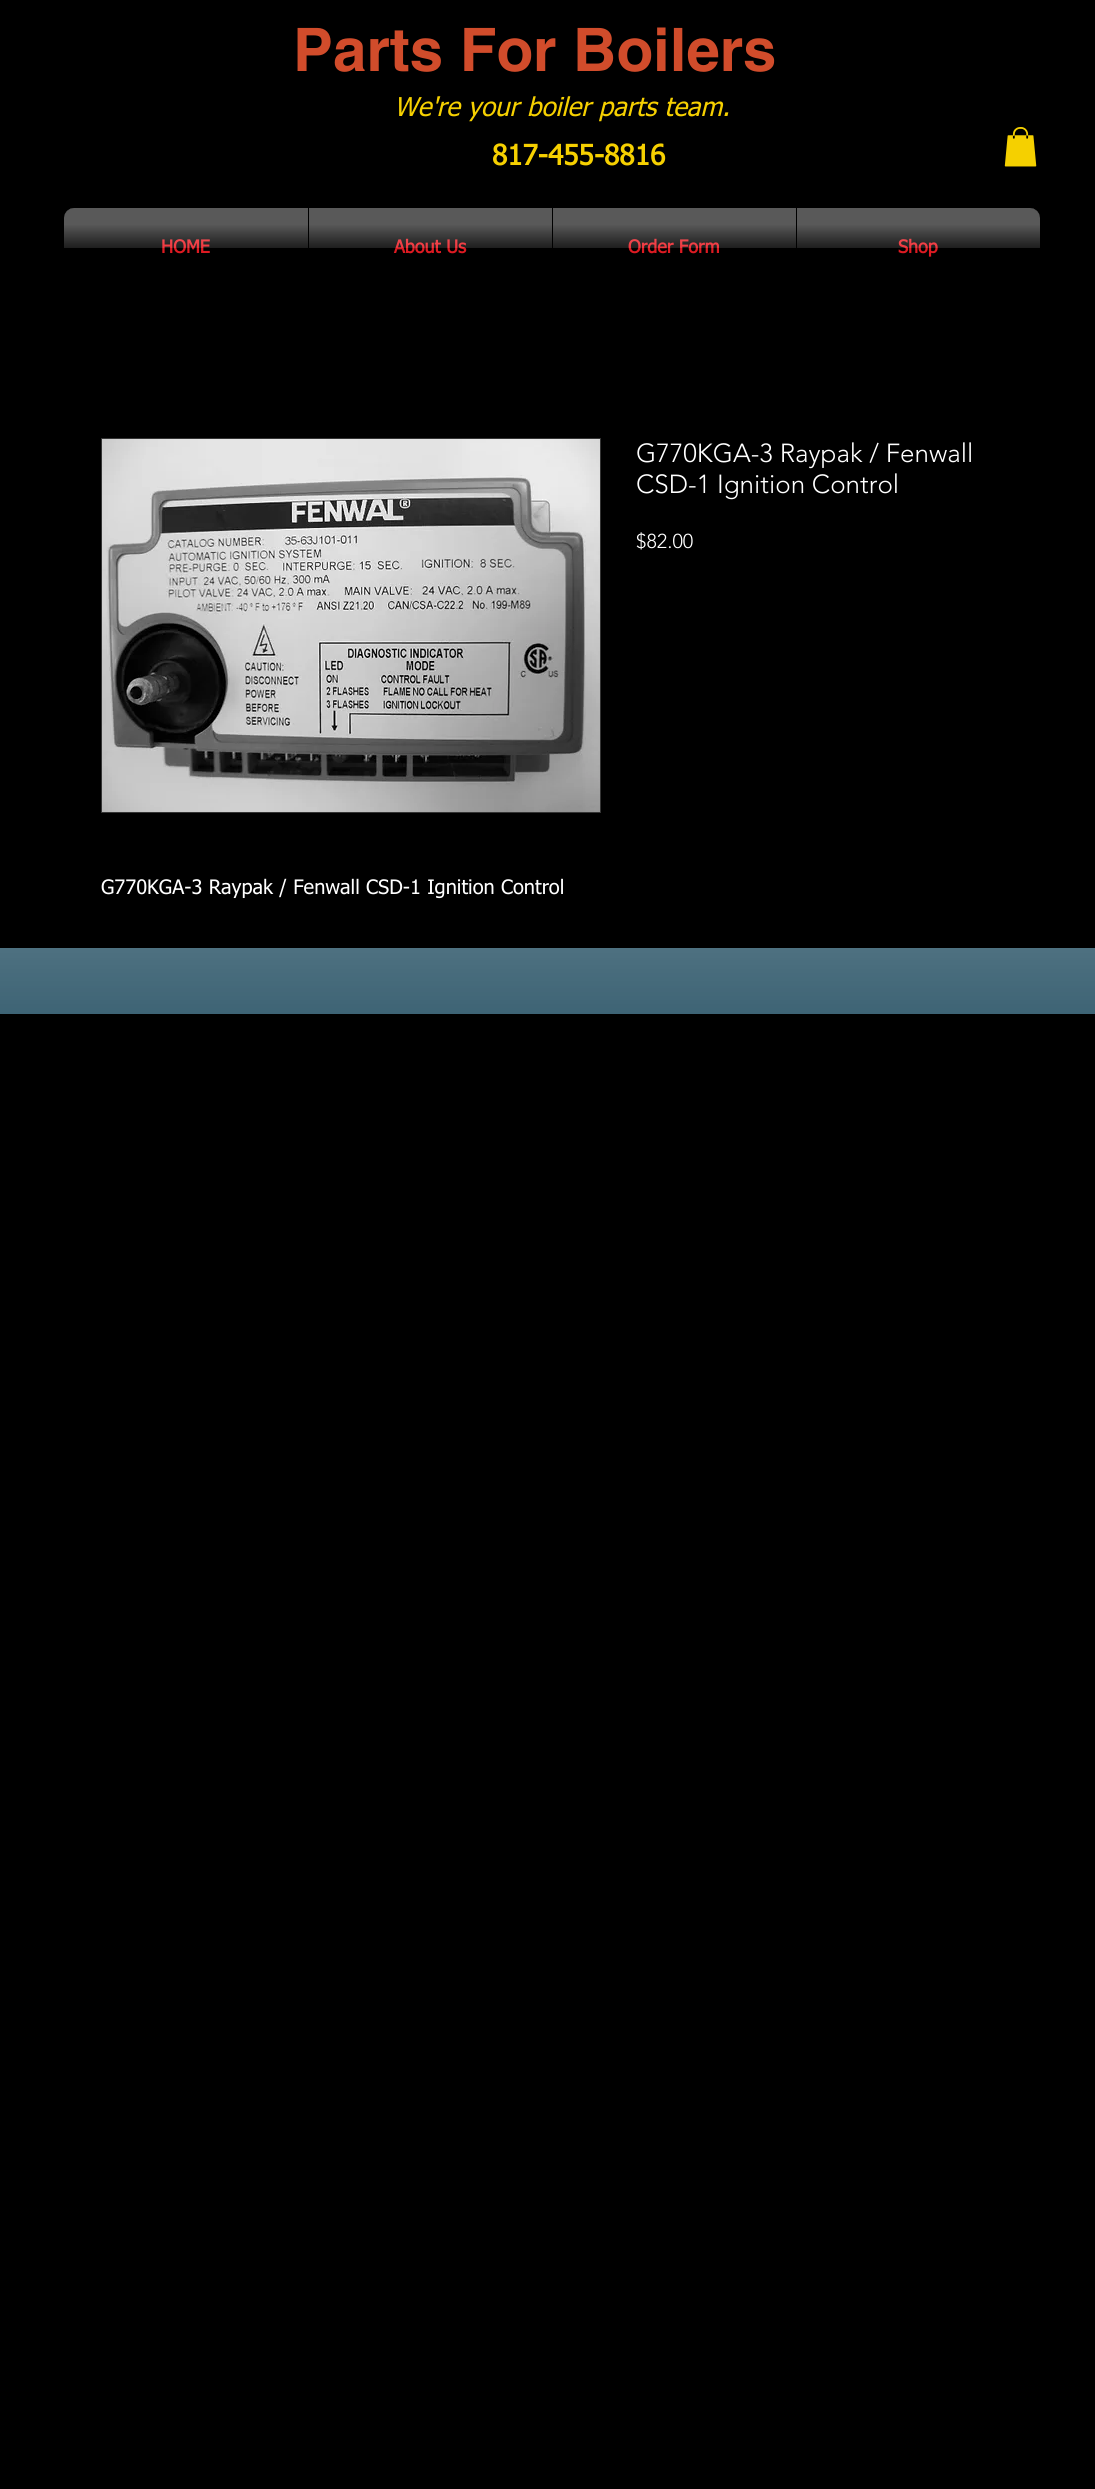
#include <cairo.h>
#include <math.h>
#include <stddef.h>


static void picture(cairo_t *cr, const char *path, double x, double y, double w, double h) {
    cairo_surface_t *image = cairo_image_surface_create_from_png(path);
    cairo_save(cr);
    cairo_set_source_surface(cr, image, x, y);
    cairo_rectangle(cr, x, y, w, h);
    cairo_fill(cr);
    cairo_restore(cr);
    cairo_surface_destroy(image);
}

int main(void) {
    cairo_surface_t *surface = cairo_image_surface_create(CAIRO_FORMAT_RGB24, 1095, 2489);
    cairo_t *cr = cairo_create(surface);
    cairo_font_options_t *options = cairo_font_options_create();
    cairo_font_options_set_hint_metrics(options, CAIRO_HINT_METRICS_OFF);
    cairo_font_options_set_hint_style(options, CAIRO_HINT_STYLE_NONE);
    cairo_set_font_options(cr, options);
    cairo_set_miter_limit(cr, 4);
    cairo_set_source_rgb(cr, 0, 0, 0);
    cairo_paint(cr);
    cairo_select_font_face(cr, "helvetica", CAIRO_FONT_SLANT_NORMAL, CAIRO_FONT_WEIGHT_BOLD);
    cairo_set_font_size(cr, 60);
    cairo_set_source_rgb(cr, 0.82, 0.298, 0.169);
    cairo_move_to(cr, 293, 71);
    cairo_show_text(cr, "Parts For Boilers");
    cairo_select_font_face(cr, "tahoma", CAIRO_FONT_SLANT_ITALIC, CAIRO_FONT_WEIGHT_NORMAL);
    cairo_set_font_size(cr, 26);
    cairo_set_source_rgb(cr, 0.961, 0.816, 0);
    cairo_move_to(cr, 394, 116);
    cairo_show_text(cr, "We're your boiler parts team.");
    cairo_select_font_face(cr, "tahoma", CAIRO_FONT_SLANT_NORMAL, CAIRO_FONT_WEIGHT_BOLD);
    cairo_set_font_size(cr, 28);
    cairo_move_to(cr, 492, 165);
    cairo_show_text(cr, "817-455-8816");
    picture(cr, "img1.png", 1004, 127, 33, 40);
    picture(cr, "img2.png", 64, 208, 976, 10);
    cairo_set_source_rgb(cr, 0, 0, 0);
    cairo_new_path(cr);
    cairo_move_to(cr, 74, 208);
    cairo_line_to(cr, 308, 208);
    cairo_line_to(cr, 308, 288);
    cairo_line_to(cr, 64, 288);
    cairo_line_to(cr, 64, 218);
    cairo_curve_to(cr, 64, 212.5, 68.5, 208, 74, 208);
    cairo_close_path(cr);
    cairo_fill(cr);
    cairo_set_font_size(cr, 18);
    cairo_set_source_rgb(cr, 0.929, 0.11, 0.141);
    cairo_move_to(cr, 161, 253);
    cairo_show_text(cr, "HOME");
    picture(cr, "img3.png", 64, 208, 244, 45);
    cairo_set_source_rgb(cr, 0, 0, 0);
    cairo_rectangle(cr, 308, 208, 488, 10);
    cairo_fill(cr);
    cairo_set_source_rgb(cr, 0.929, 0.11, 0.141);
    cairo_move_to(cr, 394, 253);
    cairo_show_text(cr, "About Us");
    picture(cr, "img4.png", 309, 208, 243, 45);
    cairo_move_to(cr, 628, 253);
    cairo_show_text(cr, "Order Form");
    picture(cr, "img5.png", 553, 208, 243, 45);
    cairo_set_source_rgb(cr, 0, 0, 0);
    cairo_new_path(cr);
    cairo_move_to(cr, 796, 208);
    cairo_line_to(cr, 1030, 208);
    cairo_curve_to(cr, 1035.5, 208, 1040, 212.5, 1040, 218);
    cairo_line_to(cr, 1040, 288);
    cairo_line_to(cr, 796, 288);
    cairo_close_path(cr);
    cairo_fill(cr);
    cairo_set_source_rgb(cr, 0.929, 0.11, 0.141);
    cairo_move_to(cr, 898, 253);
    cairo_show_text(cr, "Shop");
    picture(cr, "img6.png", 797, 208, 243, 49);
    cairo_select_font_face(cr, "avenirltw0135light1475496 Light", CAIRO_FONT_SLANT_NORMAL, CAIRO_FONT_WEIGHT_NORMAL);
    cairo_set_font_size(cr, 26);
    cairo_set_source_rgb(cr, 1, 1, 1);
    cairo_move_to(cr, 636, 462);
    cairo_show_text(cr, "G770KGA-3 Raypak / Fenwall");
    cairo_move_to(cr, 636, 493);
    cairo_show_text(cr, "CSD-1 Ignition Control");
    cairo_set_font_size(cr, 20);
    cairo_move_to(cr, 636, 548);
    cairo_show_text(cr, "$82.00");
    cairo_rectangle(cr, 101.5, 438.5, 499, 374);
    cairo_set_source_rgb(cr, 0.208, 0.208, 0.208);
    cairo_set_line_width(cr, 1);
    cairo_stroke(cr);
    picture(cr, "img7.png", 102, 439, 498, 373);
    cairo_select_font_face(cr, "tahoma", CAIRO_FONT_SLANT_NORMAL, CAIRO_FONT_WEIGHT_NORMAL);
    cairo_set_source_rgb(cr, 1, 1, 1);
    cairo_move_to(cr, 101, 894);
    cairo_show_text(cr, "G770KGA-3 Raypak / Fenwall CSD-1 Ignition Control");
    cairo_set_source_rgb(cr, 0.063, 0.247, 0.329);
    cairo_rectangle(cr, 0, 948, 1095, 66);
    cairo_fill(cr);
    picture(cr, "img8.png", 0, 948, 1095, 66);
    cairo_surface_write_to_png(surface, "page.png");
    cairo_font_options_destroy(options);
    cairo_destroy(cr);
    cairo_surface_destroy(surface);
    return 0;
}
